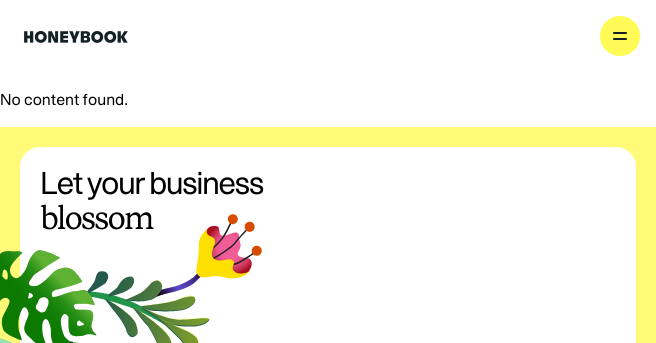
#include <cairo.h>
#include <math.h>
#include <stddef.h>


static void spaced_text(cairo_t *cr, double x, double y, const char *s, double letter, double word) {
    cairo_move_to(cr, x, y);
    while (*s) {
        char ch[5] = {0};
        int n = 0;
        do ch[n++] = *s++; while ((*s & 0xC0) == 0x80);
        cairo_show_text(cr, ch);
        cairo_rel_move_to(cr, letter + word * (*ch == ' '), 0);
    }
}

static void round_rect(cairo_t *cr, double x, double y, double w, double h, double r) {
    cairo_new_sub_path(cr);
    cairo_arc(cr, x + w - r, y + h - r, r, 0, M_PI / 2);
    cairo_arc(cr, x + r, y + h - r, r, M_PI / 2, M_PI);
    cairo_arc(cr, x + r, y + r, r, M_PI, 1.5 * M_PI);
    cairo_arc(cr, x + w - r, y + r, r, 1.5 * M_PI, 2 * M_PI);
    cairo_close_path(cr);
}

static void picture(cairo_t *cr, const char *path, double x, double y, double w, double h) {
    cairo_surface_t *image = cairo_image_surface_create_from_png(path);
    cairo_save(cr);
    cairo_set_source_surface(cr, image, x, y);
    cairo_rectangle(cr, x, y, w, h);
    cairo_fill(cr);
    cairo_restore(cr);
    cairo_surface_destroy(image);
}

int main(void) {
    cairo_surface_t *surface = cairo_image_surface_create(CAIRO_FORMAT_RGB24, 656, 343);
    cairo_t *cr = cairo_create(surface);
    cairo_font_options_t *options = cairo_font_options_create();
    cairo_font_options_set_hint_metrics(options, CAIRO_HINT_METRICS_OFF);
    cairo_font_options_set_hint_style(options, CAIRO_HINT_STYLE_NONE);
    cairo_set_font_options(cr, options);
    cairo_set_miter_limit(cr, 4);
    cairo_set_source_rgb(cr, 1, 1, 1);
    cairo_paint(cr);
    picture(cr, "img1.png", 24, 31, 104, 12);
    cairo_set_source_rgb(cr, 1, 0.98, 0.337);
    cairo_arc(cr, 620, 36, 20, 0, 2 * M_PI);
    cairo_fill(cr);
    cairo_new_path(cr);
    cairo_move_to(cr, 614, 33);
    cairo_line_to(cr, 626, 33);
    cairo_move_to(cr, 614, 39);
    cairo_line_to(cr, 626, 39);
    cairo_set_source_rgb(cr, 0.078, 0.129, 0.153);
    cairo_set_line_cap(cr, CAIRO_LINE_CAP_ROUND);
    cairo_stroke(cr);
    cairo_select_font_face(cr, "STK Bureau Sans", CAIRO_FONT_SLANT_NORMAL, CAIRO_FONT_WEIGHT_NORMAL);
    cairo_set_font_size(cr, 16);
    cairo_set_source_rgb(cr, 0, 0, 0);
    cairo_move_to(cr, 0, 105);
    cairo_show_text(cr, "No content found.");
    cairo_set_source_rgb(cr, 1, 0.98, 0.467);
    cairo_rectangle(cr, 0, 127, 656, 216);
    cairo_fill(cr);
    cairo_set_source_rgb(cr, 1, 1, 1);
    round_rect(cr, 20, 147, 616, 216, 20);
    cairo_fill(cr);
    cairo_set_font_size(cr, 32);
    cairo_set_source_rgb(cr, 0, 0, 0);
    spaced_text(cr, 40, 194, "Let your business", -1.6, 0);
    cairo_select_font_face(cr, "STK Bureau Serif", CAIRO_FONT_SLANT_NORMAL, CAIRO_FONT_WEIGHT_NORMAL);
    spaced_text(cr, 40, 229, "blossom", -1.6, 0);
    picture(cr, "img2.png", 0, 214, 262, 129);
    cairo_surface_write_to_png(surface, "page.png");
    cairo_font_options_destroy(options);
    cairo_destroy(cr);
    cairo_surface_destroy(surface);
    return 0;
}
